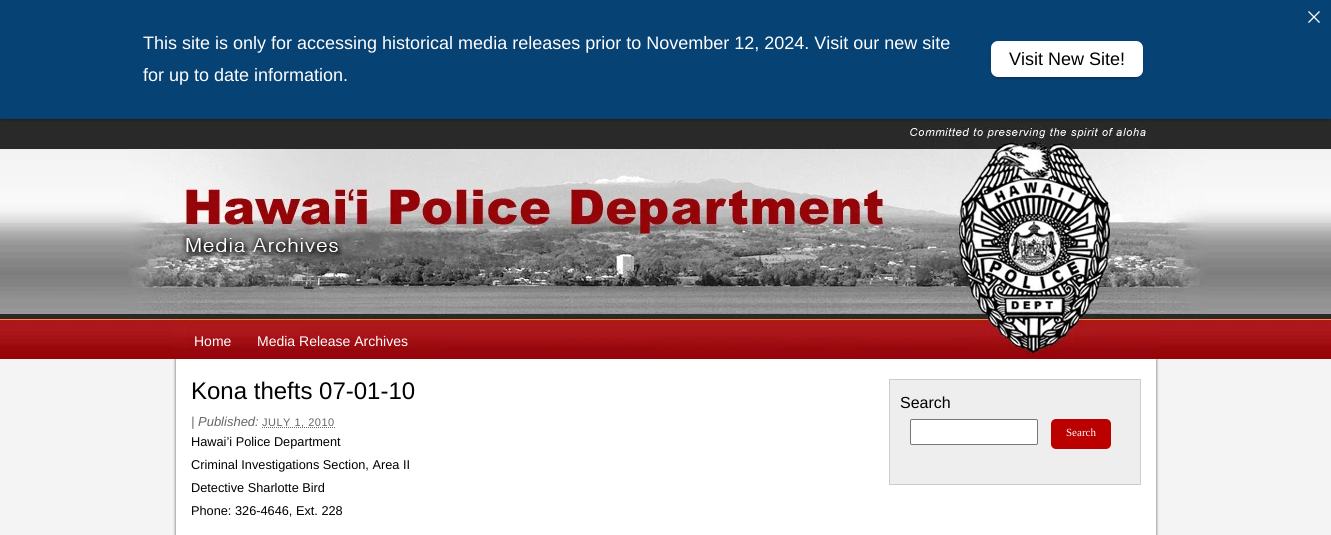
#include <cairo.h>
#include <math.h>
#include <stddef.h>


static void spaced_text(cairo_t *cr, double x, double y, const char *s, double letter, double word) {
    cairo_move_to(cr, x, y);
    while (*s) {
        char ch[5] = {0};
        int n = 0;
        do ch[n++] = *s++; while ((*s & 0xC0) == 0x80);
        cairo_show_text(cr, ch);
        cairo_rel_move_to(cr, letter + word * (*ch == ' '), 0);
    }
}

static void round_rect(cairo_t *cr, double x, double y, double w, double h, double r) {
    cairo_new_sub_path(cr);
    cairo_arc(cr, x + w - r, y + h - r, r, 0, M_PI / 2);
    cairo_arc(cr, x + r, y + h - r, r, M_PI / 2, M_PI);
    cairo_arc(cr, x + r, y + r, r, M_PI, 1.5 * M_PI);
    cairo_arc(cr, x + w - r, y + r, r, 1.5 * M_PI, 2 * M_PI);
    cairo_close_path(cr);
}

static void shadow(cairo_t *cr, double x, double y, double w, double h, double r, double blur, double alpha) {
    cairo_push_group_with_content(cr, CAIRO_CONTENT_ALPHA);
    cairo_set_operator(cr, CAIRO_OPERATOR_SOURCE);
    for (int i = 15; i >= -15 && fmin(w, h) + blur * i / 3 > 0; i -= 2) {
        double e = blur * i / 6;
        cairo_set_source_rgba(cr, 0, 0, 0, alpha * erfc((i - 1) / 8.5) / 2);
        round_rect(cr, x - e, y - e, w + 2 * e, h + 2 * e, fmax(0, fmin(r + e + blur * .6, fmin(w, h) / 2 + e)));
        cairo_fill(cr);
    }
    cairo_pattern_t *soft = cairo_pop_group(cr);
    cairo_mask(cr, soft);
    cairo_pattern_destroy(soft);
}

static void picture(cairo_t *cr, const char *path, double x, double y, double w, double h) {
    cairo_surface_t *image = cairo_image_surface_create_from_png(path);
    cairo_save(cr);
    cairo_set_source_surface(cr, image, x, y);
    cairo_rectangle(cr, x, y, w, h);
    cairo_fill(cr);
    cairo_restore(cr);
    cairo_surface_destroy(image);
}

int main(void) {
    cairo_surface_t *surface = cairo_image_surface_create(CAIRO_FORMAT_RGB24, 1331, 535);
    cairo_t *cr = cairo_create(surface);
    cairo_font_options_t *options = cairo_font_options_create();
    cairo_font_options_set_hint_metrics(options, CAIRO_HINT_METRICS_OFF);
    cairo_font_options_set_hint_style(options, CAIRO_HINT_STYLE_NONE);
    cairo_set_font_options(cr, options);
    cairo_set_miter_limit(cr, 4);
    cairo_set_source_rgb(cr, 0.957, 0.957, 0.957);
    cairo_paint(cr);
    cairo_set_source_rgb(cr, 0.161, 0.161, 0.161);
    cairo_rectangle(cr, 0, 119, 1331, 30);
    cairo_fill(cr);
    cairo_set_source_rgb(cr, 0, 0, 0);
    shadow(cr, 2, 4, 1327, 115, 0, 2, 0.5);
    cairo_set_source_rgb(cr, 0.031, 0.259, 0.459);
    cairo_rectangle(cr, 0, 0, 1331, 119);
    cairo_fill(cr);
    picture(cr, "img1.png", 1308, 11, 12, 12);
    cairo_select_font_face(cr, "Liberation Sans", CAIRO_FONT_SLANT_NORMAL, CAIRO_FONT_WEIGHT_NORMAL);
    cairo_set_font_size(cr, 18);
    cairo_set_source_rgb(cr, 1, 1, 1);
    cairo_move_to(cr, 143, 49);
    cairo_show_text(cr, "This site is only for accessing historical media releases prior to November 12, 2024. Visit our new site");
    cairo_move_to(cr, 143, 81);
    cairo_show_text(cr, "for up to date information.");
    cairo_set_source_rgb(cr, 0, 0, 0);
    shadow(cr, 993, 45, 148, 32, 5, 2, 0.5);
    cairo_set_source_rgb(cr, 1, 1, 1);
    round_rect(cr, 991, 41, 152, 36, 7);
    cairo_fill(cr);
    cairo_set_source_rgb(cr, 0, 0, 0);
    cairo_move_to(cr, 1009, 65);
    cairo_show_text(cr, "Visit New Site!");
    picture(cr, "img2.png", 0, 149, 1331, 210);
    picture(cr, "img3.png", 910, 127, 240, 22);
    picture(cr, "img4.png", 126, 149, 1080, 170);
    picture(cr, "img5.png", 171, 319, 990, 40);
    cairo_set_font_size(cr, 14);
    cairo_set_source_rgb(cr, 1, 1, 1);
    cairo_move_to(cr, 194, 346);
    cairo_show_text(cr, "Home");
    cairo_move_to(cr, 257, 346);
    cairo_show_text(cr, "Media Release Archives");
    picture(cr, "img6.png", 173, 359, 986, 176);
    cairo_set_font_size(cr, 24);
    cairo_set_source_rgb(cr, 0, 0, 0);
    cairo_move_to(cr, 191, 399);
    cairo_show_text(cr, "Kona thefts 07-01-10");
    cairo_select_font_face(cr, "Liberation Sans", CAIRO_FONT_SLANT_ITALIC, CAIRO_FONT_WEIGHT_NORMAL);
    cairo_set_font_size(cr, 13);
    cairo_set_source_rgb(cr, 0.4, 0.4, 0.4);
    cairo_move_to(cr, 191, 426);
    cairo_show_text(cr, "| Published:");
    cairo_new_path(cr);
    cairo_move_to(cr, 262, 427.5);
    cairo_line_to(cr, 335, 427.5);
    cairo_set_line_width(cr, 1);
    cairo_set_dash(cr, (double[]){1, 1}, 2, 0);
    cairo_stroke(cr);
    cairo_select_font_face(cr, "Liberation Sans", CAIRO_FONT_SLANT_NORMAL, CAIRO_FONT_WEIGHT_NORMAL);
    cairo_set_font_size(cr, 11);
    spaced_text(cr, 262, 426, "JULY 1, 2010", 0.5, 0);
    cairo_set_font_size(cr, 12.75);
    cairo_set_source_rgb(cr, 0, 0, 0);
    cairo_move_to(cr, 191, 446);
    cairo_show_text(cr, "Hawai’i Police Department");
    cairo_move_to(cr, 191, 469);
    cairo_show_text(cr, "Criminal Investigations Section, Area II");
    cairo_move_to(cr, 191, 492);
    cairo_show_text(cr, "Detective Sharlotte Bird");
    cairo_move_to(cr, 191, 515);
    cairo_show_text(cr, "Phone: 326-4646, Ext. 228");
    cairo_set_source_rgb(cr, 0.933, 0.933, 0.933);
    cairo_rectangle(cr, 889.5, 379.5, 251, 105);
    cairo_fill_preserve(cr);
    cairo_set_source_rgb(cr, 0.8, 0.8, 0.8);
    cairo_set_dash(cr, NULL, 0, 0);
    cairo_stroke(cr);
    cairo_set_font_size(cr, 16);
    cairo_set_source_rgb(cr, 0, 0, 0);
    cairo_move_to(cr, 900, 408);
    cairo_show_text(cr, "Search");
    cairo_set_source_rgb(cr, 1, 1, 1);
    round_rect(cr, 910.5, 419.5, 127, 25, 1.5);
    cairo_fill_preserve(cr);
    cairo_set_source_rgb(cr, 0.463, 0.463, 0.463);
    cairo_stroke(cr);
    cairo_set_source_rgb(cr, 0.733, 0, 0);
    round_rect(cr, 1051, 419, 60, 30, 5);
    cairo_fill(cr);
    cairo_select_font_face(cr, "Liberation Serif", CAIRO_FONT_SLANT_NORMAL, CAIRO_FONT_WEIGHT_NORMAL);
    cairo_set_font_size(cr, 11);
    cairo_set_source_rgb(cr, 1, 1, 1);
    cairo_move_to(cr, 1066, 436);
    cairo_show_text(cr, "Search");
    cairo_surface_write_to_png(surface, "page.png");
    cairo_font_options_destroy(options);
    cairo_destroy(cr);
    cairo_surface_destroy(surface);
    return 0;
}
